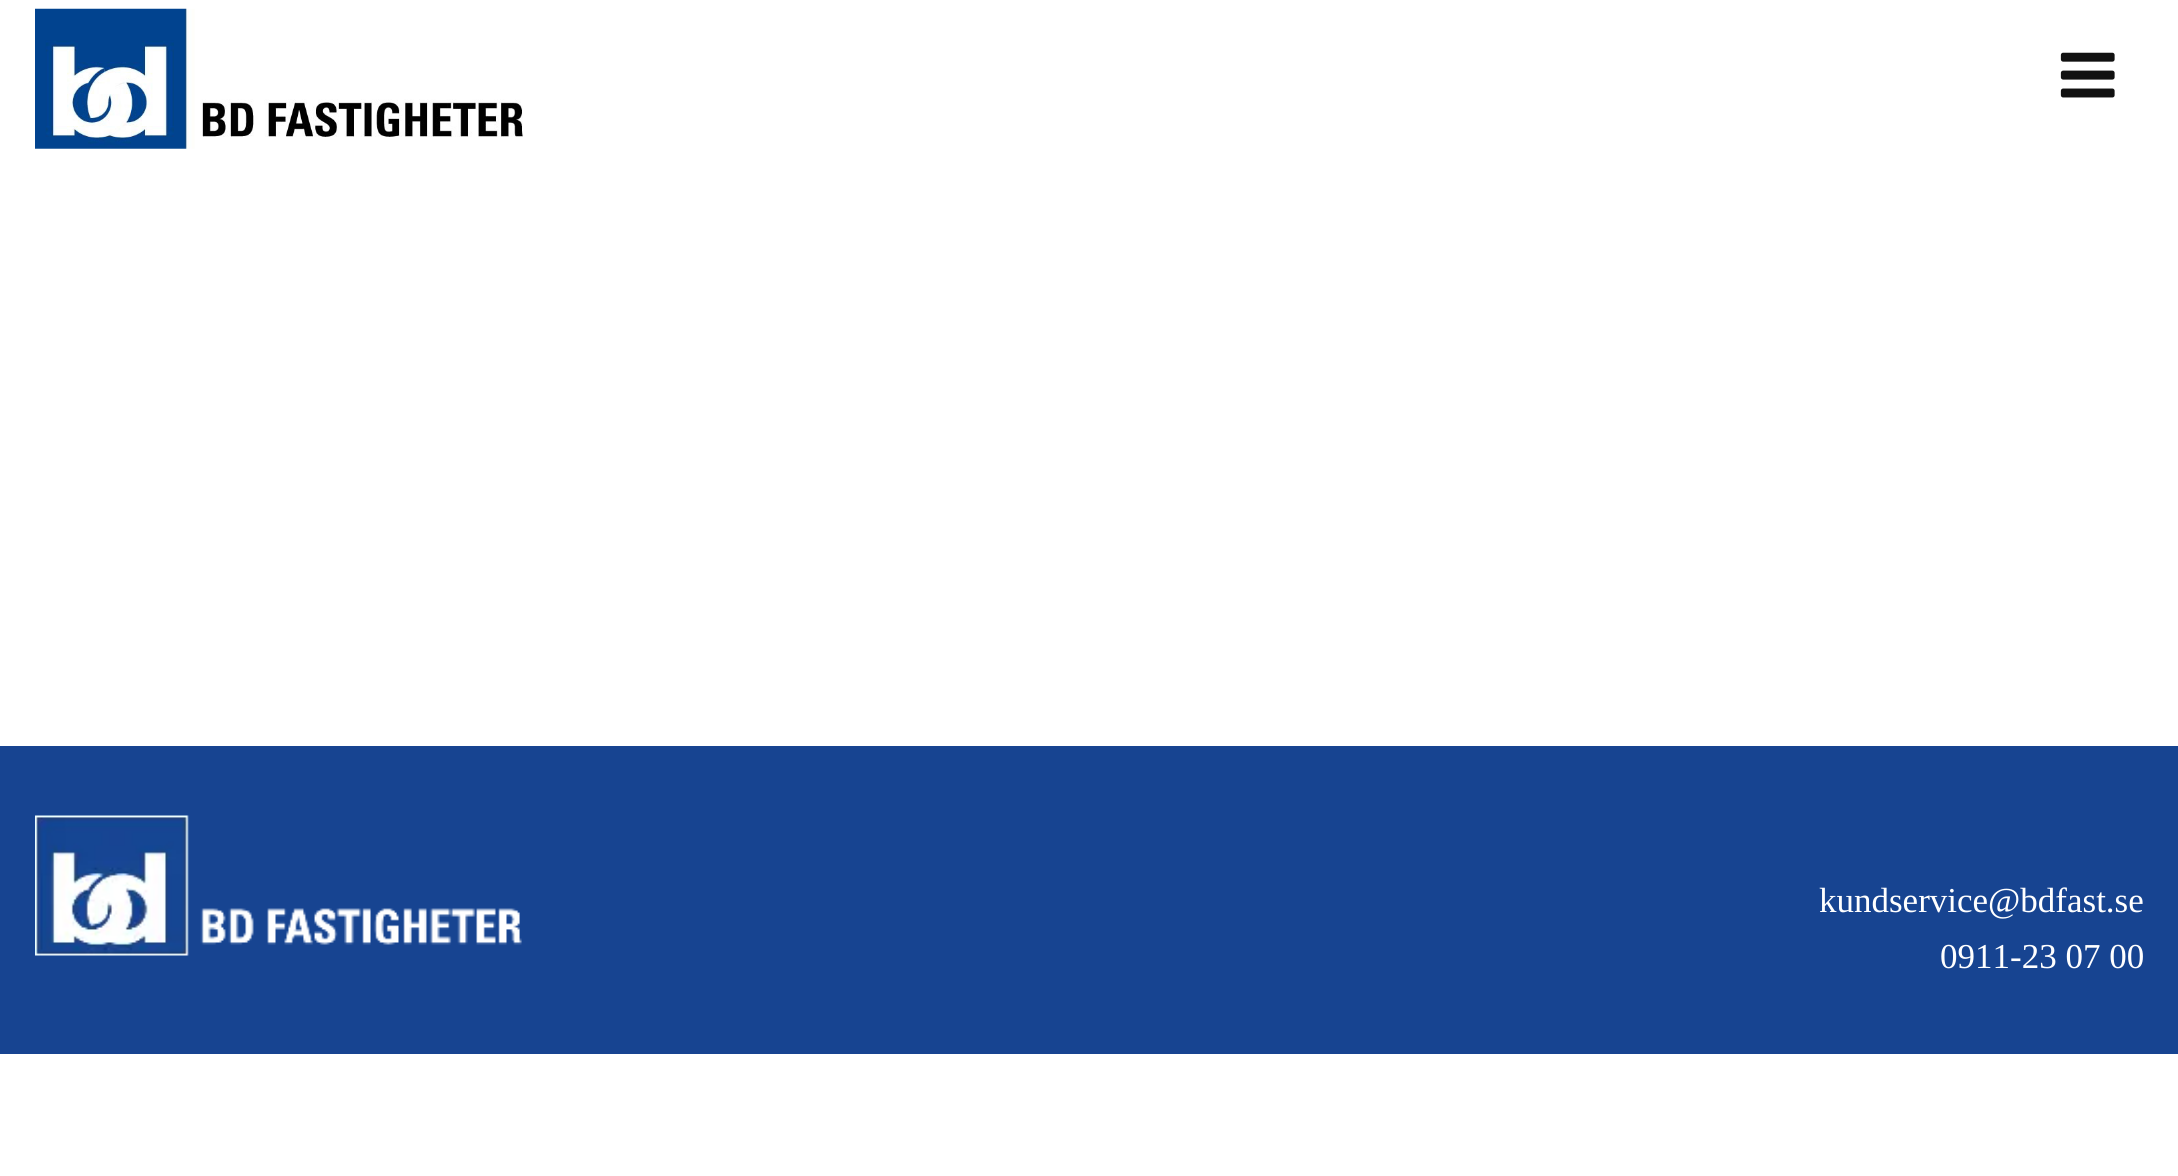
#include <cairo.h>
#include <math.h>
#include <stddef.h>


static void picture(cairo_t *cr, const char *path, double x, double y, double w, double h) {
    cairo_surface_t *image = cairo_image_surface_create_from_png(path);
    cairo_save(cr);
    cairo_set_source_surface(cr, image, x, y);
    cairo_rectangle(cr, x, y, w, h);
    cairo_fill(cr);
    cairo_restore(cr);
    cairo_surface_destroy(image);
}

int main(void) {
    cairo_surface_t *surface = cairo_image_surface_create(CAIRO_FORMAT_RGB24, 2178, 1176);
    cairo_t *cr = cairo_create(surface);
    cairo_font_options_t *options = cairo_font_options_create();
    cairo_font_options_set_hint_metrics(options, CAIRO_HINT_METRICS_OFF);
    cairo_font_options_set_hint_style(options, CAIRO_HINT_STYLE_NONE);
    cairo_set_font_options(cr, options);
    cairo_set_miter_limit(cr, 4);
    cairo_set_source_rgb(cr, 1, 1, 1);
    cairo_paint(cr);
    picture(cr, "img1.png", 35, 8, 489, 141);
    picture(cr, "img2.png", 2060, 52, 55, 46);
    cairo_set_source_rgb(cr, 0.09, 0.267, 0.569);
    cairo_rectangle(cr, 0, 746, 2178, 308);
    cairo_fill(cr);
    picture(cr, "img3.png", 35, 815, 487, 141);
    cairo_select_font_face(cr, "Liberation Serif", CAIRO_FONT_SLANT_NORMAL, CAIRO_FONT_WEIGHT_NORMAL);
    cairo_set_font_size(cr, 35);
    cairo_set_source_rgb(cr, 1, 1, 1);
    cairo_move_to(cr, 1819, 912);
    cairo_show_text(cr, "kundservice@bdfast.se");
    cairo_move_to(cr, 1940, 968);
    cairo_show_text(cr, "0911-23 07 00");
    cairo_surface_write_to_png(surface, "page.png");
    cairo_font_options_destroy(options);
    cairo_destroy(cr);
    cairo_surface_destroy(surface);
    return 0;
}
